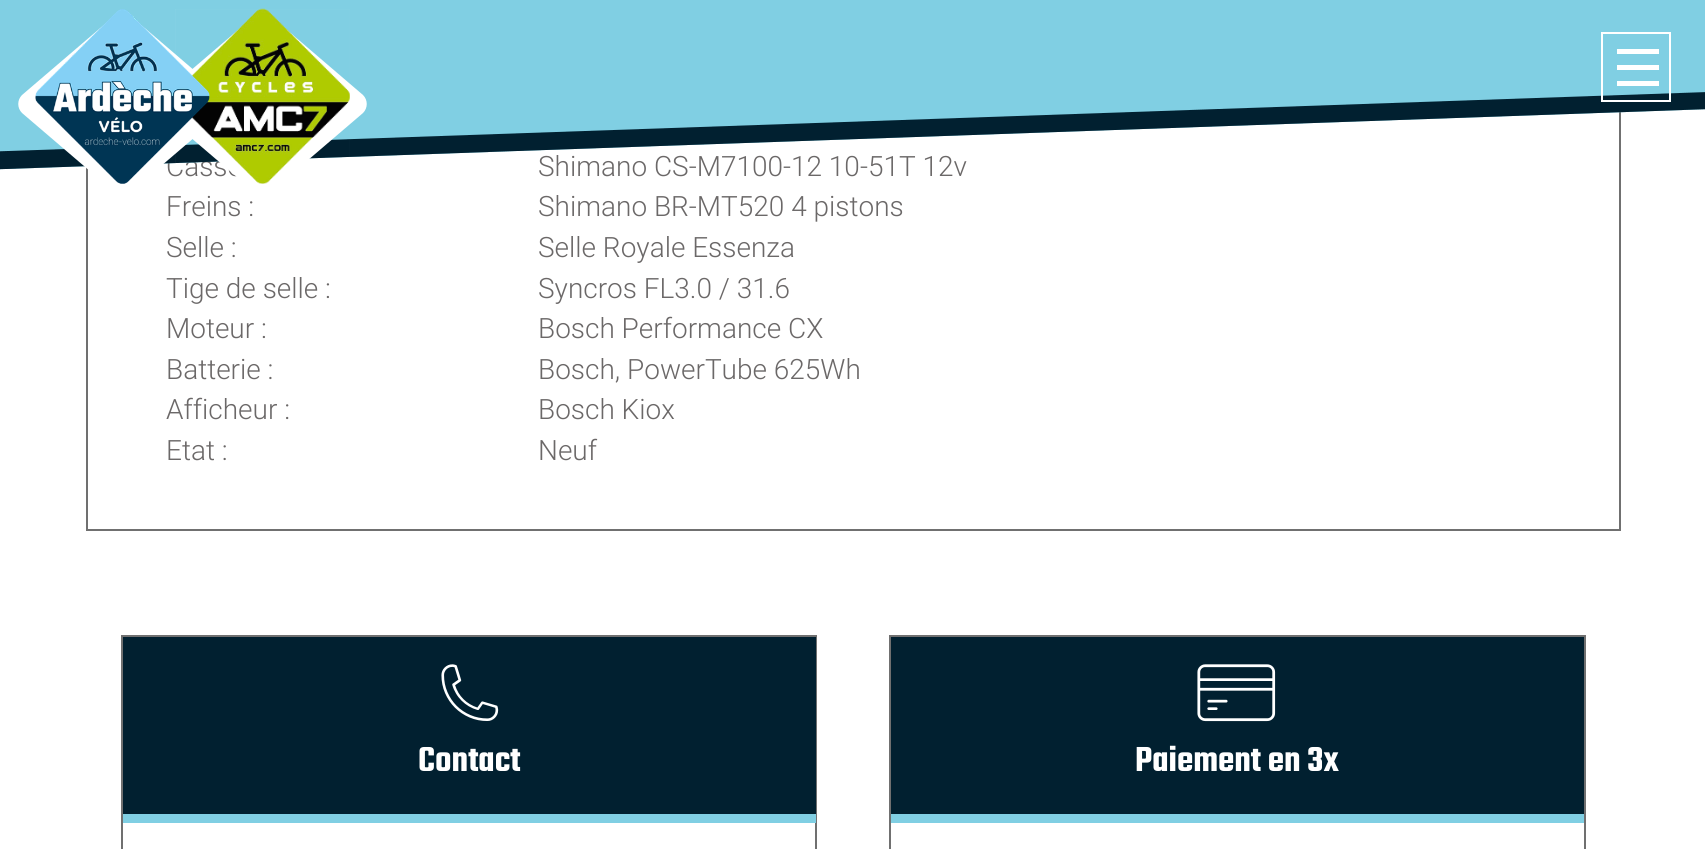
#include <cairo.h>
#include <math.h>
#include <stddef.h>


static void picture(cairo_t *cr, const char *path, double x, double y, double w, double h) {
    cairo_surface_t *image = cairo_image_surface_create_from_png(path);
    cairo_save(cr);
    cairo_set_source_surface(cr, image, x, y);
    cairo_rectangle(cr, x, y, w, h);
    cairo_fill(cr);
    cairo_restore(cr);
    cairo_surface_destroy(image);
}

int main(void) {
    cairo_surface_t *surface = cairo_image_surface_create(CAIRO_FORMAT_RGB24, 1705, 849);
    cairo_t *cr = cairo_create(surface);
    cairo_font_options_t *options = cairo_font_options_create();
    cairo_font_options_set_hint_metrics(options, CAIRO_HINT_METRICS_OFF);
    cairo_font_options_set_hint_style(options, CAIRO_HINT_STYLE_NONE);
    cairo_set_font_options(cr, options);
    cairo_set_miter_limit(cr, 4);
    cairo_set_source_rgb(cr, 1, 1, 1);
    cairo_paint(cr);
    cairo_set_source_rgb(cr, 0.439, 0.439, 0.439);
    cairo_rectangle(cr, 1619, 112, 2, 418);
    cairo_fill(cr);
    cairo_rectangle(cr, 86, 529, 1535, 2);
    cairo_fill(cr);
    cairo_rectangle(cr, 86, 167, 2, 363);
    cairo_fill(cr);
    cairo_select_font_face(cr, "Roboto Light", CAIRO_FONT_SLANT_NORMAL, CAIRO_FONT_WEIGHT_NORMAL);
    cairo_set_font_size(cr, 28);
    cairo_set_source_rgb(cr, 0.42, 0.408, 0.408);
    cairo_move_to(cr, 166, 176);
    cairo_show_text(cr, "Casse");
    cairo_move_to(cr, 538, 176);
    cairo_show_text(cr, "Shimano CS-M7100-12 10-51T 12v");
    cairo_set_source_rgb(cr, 0.502, 0.812, 0.89);
    cairo_new_path(cr);
    cairo_move_to(cr, -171, 0);
    cairo_line_to(cr, 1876, -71);
    cairo_line_to(cr, 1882, 103);
    cairo_line_to(cr, -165, 175);
    cairo_close_path(cr);
    cairo_fill(cr);
    cairo_set_source_rgb(cr, 0.004, 0.125, 0.188);
    cairo_new_path(cr);
    cairo_move_to(cr, -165, 157);
    cairo_line_to(cr, 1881, 86);
    cairo_line_to(cr, 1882, 103);
    cairo_line_to(cr, -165, 175);
    cairo_close_path(cr);
    cairo_fill(cr);
    cairo_set_source_rgb(cr, 1, 1, 1);
    cairo_new_path(cr);
    cairo_move_to(cr, 133, 18);
    cairo_line_to(cr, 223, 95);
    cairo_curve_to(cr, 228, 100, 228, 108, 223, 113);
    cairo_line_to(cr, 133, 190);
    cairo_curve_to(cr, 127, 195, 118, 195, 112, 190);
    cairo_line_to(cr, 22, 113);
    cairo_curve_to(cr, 17, 108, 17, 100, 22, 95);
    cairo_line_to(cr, 112, 18);
    cairo_curve_to(cr, 118, 13, 127, 13, 133, 18);
    cairo_close_path(cr);
    cairo_fill(cr);
    cairo_new_path(cr);
    cairo_move_to(cr, 273, 18);
    cairo_line_to(cr, 363, 95);
    cairo_curve_to(cr, 368, 100, 368, 108, 363, 113);
    cairo_line_to(cr, 273, 190);
    cairo_curve_to(cr, 267, 195, 258, 195, 252, 190);
    cairo_line_to(cr, 162, 113);
    cairo_curve_to(cr, 157, 108, 157, 100, 162, 95);
    cairo_line_to(cr, 252, 18);
    cairo_curve_to(cr, 258, 13, 267, 13, 273, 18);
    cairo_close_path(cr);
    cairo_fill(cr);
    picture(cr, "img2.png", 175, 8, 175, 176);
    picture(cr, "img1.png", 35, 9, 175, 175);
    cairo_rectangle(cr, 1602, 33, 68, 68);
    cairo_stroke(cr);
    cairo_rectangle(cr, 1617, 65, 42, 5);
    cairo_fill(cr);
    cairo_rectangle(cr, 1617, 49, 42, 5);
    cairo_fill(cr);
    cairo_rectangle(cr, 1617, 81, 42, 5);
    cairo_fill(cr);
    cairo_set_source_rgb(cr, 0.42, 0.408, 0.408);
    cairo_move_to(cr, 166, 216);
    cairo_show_text(cr, "Freins :");
    cairo_move_to(cr, 538, 216);
    cairo_show_text(cr, "Shimano BR-MT520 4 pistons");
    cairo_move_to(cr, 166, 257);
    cairo_show_text(cr, "Selle :");
    cairo_move_to(cr, 538, 257);
    cairo_show_text(cr, "Selle Royale Essenza");
    cairo_move_to(cr, 166, 298);
    cairo_show_text(cr, "Tige de selle :");
    cairo_move_to(cr, 538, 298);
    cairo_show_text(cr, "Syncros FL3.0 / 31.6");
    cairo_move_to(cr, 166, 338);
    cairo_show_text(cr, "Moteur :");
    cairo_move_to(cr, 538, 338);
    cairo_show_text(cr, "Bosch Performance CX");
    cairo_move_to(cr, 166, 379);
    cairo_show_text(cr, "Batterie :");
    cairo_move_to(cr, 538, 379);
    cairo_show_text(cr, "Bosch, PowerTube 625Wh");
    cairo_move_to(cr, 166, 419);
    cairo_show_text(cr, "Afficheur :");
    cairo_move_to(cr, 538, 419);
    cairo_show_text(cr, "Bosch Kiox");
    cairo_move_to(cr, 166, 460);
    cairo_show_text(cr, "Etat :");
    cairo_move_to(cr, 538, 460);
    cairo_show_text(cr, "Neuf");
    cairo_rectangle(cr, 122, 636, 694, 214);
    cairo_set_source_rgb(cr, 0.439, 0.439, 0.439);
    cairo_stroke(cr);
    cairo_set_source_rgb(cr, 0.004, 0.125, 0.188);
    cairo_rectangle(cr, 123, 637, 693, 177);
    cairo_fill(cr);
    cairo_set_source_rgb(cr, 0.502, 0.812, 0.89);
    cairo_rectangle(cr, 123, 814, 693, 9);
    cairo_fill(cr);
    picture(cr, "img3.png", 441, 664, 58, 57);
    cairo_select_font_face(cr, "Teko SemiBold", CAIRO_FONT_SLANT_NORMAL, CAIRO_FONT_WEIGHT_NORMAL);
    cairo_set_font_size(cr, 37.75);
    cairo_set_source_rgb(cr, 1, 1, 1);
    cairo_move_to(cr, 418, 771);
    cairo_show_text(cr, "Contact");
    cairo_rectangle(cr, 890, 636, 695, 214);
    cairo_set_source_rgb(cr, 0.439, 0.439, 0.439);
    cairo_stroke(cr);
    cairo_set_source_rgb(cr, 0.004, 0.125, 0.188);
    cairo_rectangle(cr, 891, 637, 693, 177);
    cairo_fill(cr);
    cairo_set_source_rgb(cr, 0.502, 0.812, 0.89);
    cairo_rectangle(cr, 891, 814, 693, 9);
    cairo_fill(cr);
    picture(cr, "img4.png", 1197, 664, 79, 58);
    cairo_set_source_rgb(cr, 1, 1, 1);
    cairo_move_to(cr, 1135, 771);
    cairo_show_text(cr, "Paiement en 3x");
    cairo_surface_write_to_png(surface, "page.png");
    cairo_font_options_destroy(options);
    cairo_destroy(cr);
    cairo_surface_destroy(surface);
    return 0;
}
